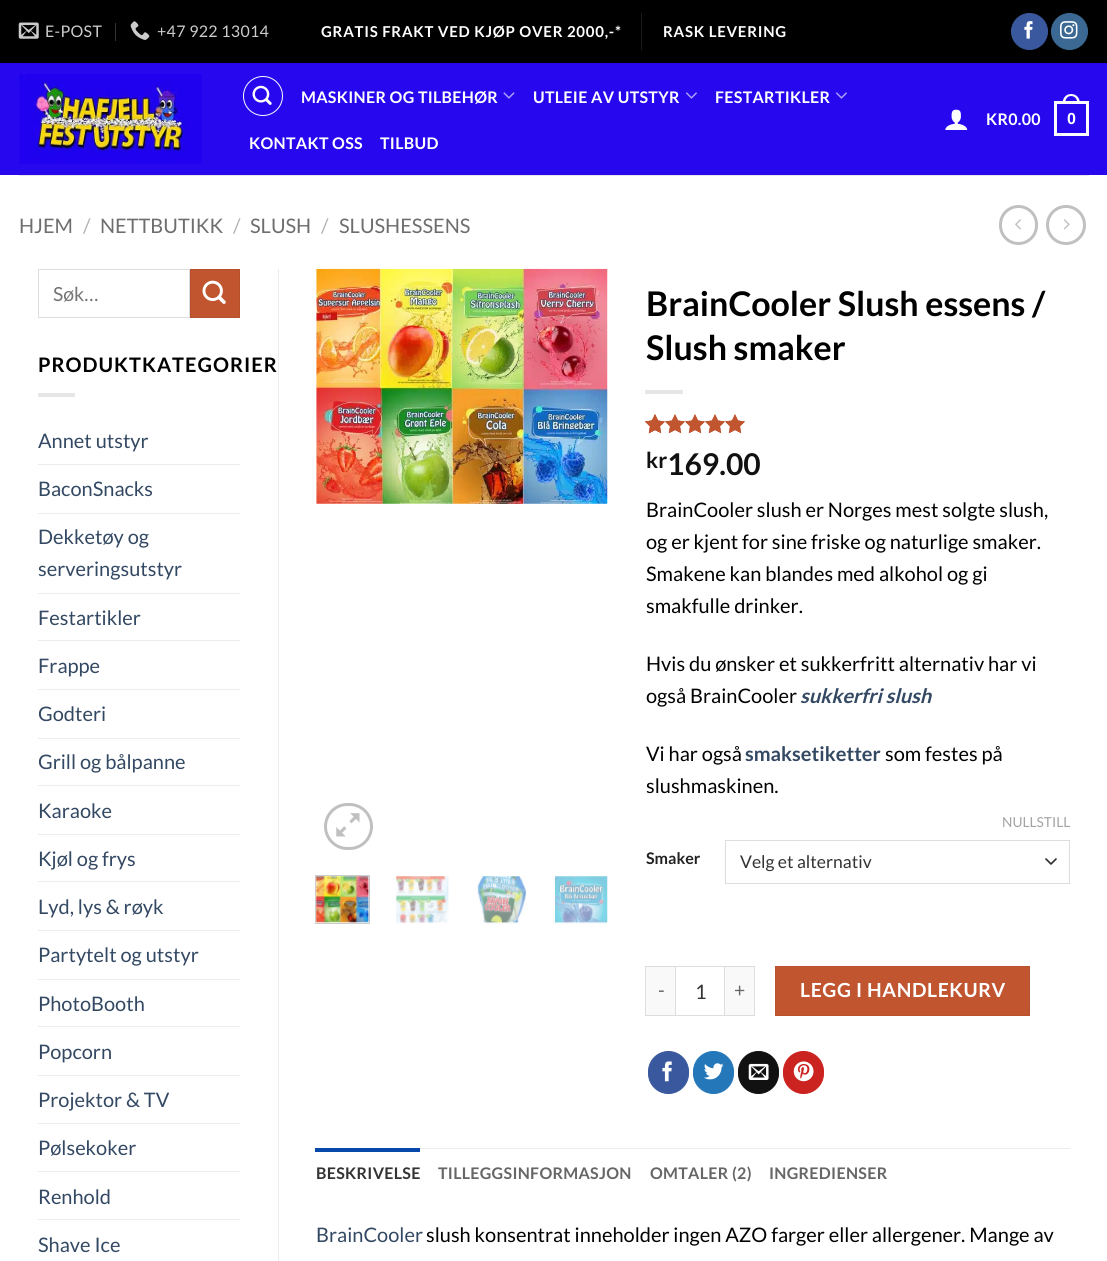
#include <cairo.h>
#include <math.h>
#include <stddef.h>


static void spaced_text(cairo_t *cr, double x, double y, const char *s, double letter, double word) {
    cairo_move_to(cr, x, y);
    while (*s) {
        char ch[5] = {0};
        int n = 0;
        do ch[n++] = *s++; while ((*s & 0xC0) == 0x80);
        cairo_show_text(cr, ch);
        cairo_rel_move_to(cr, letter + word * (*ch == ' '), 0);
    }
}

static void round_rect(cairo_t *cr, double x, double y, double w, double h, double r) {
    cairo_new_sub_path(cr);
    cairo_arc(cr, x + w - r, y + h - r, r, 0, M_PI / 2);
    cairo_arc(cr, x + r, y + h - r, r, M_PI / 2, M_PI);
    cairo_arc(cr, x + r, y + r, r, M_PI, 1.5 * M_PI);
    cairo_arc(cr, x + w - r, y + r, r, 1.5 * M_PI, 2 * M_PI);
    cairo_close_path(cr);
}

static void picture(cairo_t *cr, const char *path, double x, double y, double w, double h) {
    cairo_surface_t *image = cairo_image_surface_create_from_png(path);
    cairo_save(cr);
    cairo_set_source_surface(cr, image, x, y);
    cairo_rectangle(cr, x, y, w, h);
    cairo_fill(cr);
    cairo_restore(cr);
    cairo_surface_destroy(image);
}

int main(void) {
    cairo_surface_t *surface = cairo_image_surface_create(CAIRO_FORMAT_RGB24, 1107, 1261);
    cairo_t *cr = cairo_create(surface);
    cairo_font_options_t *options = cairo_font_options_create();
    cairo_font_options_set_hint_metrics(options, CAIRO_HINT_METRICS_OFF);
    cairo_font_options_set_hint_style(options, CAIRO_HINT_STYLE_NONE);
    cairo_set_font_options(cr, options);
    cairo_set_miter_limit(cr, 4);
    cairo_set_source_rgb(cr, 1, 1, 1);
    cairo_paint(cr);
    cairo_set_source_rgb(cr, 0, 0, 0);
    cairo_rectangle(cr, 0, 0, 1107, 63);
    cairo_fill(cr);
    picture(cr, "img1.png", 18, 22, 21, 17);
    cairo_select_font_face(cr, "Lato", CAIRO_FONT_SLANT_NORMAL, CAIRO_FONT_WEIGHT_NORMAL);
    cairo_set_font_size(cr, 16);
    cairo_set_source_rgb(cr, 0.8, 0.8, 0.8);
    spaced_text(cr, 45, 37, "E-POST", 0.3, 0);
    cairo_set_source_rgb(cr, 0.2, 0.2, 0.2);
    cairo_rectangle(cr, 115, 23, 1, 18);
    cairo_fill(cr);
    picture(cr, "img2.png", 130, 21, 20, 19);
    cairo_set_source_rgb(cr, 0.8, 0.8, 0.8);
    spaced_text(cr, 157, 37, "+47 922 13014", 0.3, 0);
    cairo_select_font_face(cr, "Lato", CAIRO_FONT_SLANT_NORMAL, CAIRO_FONT_WEIGHT_BOLD);
    cairo_set_font_size(cr, 15);
    cairo_set_source_rgb(cr, 1, 1, 1);
    spaced_text(cr, 321, 37, "GRATIS FRAKT VED KJØP OVER 2000,-*", 0.75, 0);
    cairo_set_source_rgb(cr, 0.102, 0.102, 0.102);
    cairo_rectangle(cr, 641, 13, 1, 37);
    cairo_fill(cr);
    cairo_set_source_rgb(cr, 1, 1, 1);
    spaced_text(cr, 663, 37, "RASK LEVERING", 0.75, 0);
    cairo_set_source_rgb(cr, 0.227, 0.345, 0.616);
    cairo_new_path(cr);
    cairo_arc(cr, 1029.5, 31.5, 18, 0, 2 * M_PI);
    cairo_fill_preserve(cr);
    cairo_set_line_width(cr, 1);
    cairo_stroke(cr);
    picture(cr, "img3.png", 1024, 21, 9, 18);
    cairo_set_source_rgb(cr, 0.231, 0.412, 0.58);
    cairo_arc(cr, 1069.5, 31.5, 18, 0, 2 * M_PI);
    cairo_fill_preserve(cr);
    cairo_stroke(cr);
    picture(cr, "img4.png", 1060, 21, 18, 18);
    cairo_set_source_rgb(cr, 0.149, 0.031, 0.933);
    cairo_rectangle(cr, 0, 63, 1107, 112);
    cairo_fill(cr);
    picture(cr, "img5.png", 19, 74, 183, 90);
    cairo_arc(cr, 263, 96, 19.5, 0, 2 * M_PI);
    cairo_set_source_rgb(cr, 0.988, 0.988, 0.988);
    cairo_stroke(cr);
    picture(cr, "img6.png", 252, 85, 20, 20);
    cairo_set_font_size(cr, 16);
    cairo_set_source_rgb(cr, 1, 1, 1);
    spaced_text(cr, 301, 103, "MASKINER OG TILBEHØR", 0.3, 0);
    picture(cr, "img7.png", 503, 92, 12, 7);
    spaced_text(cr, 533, 103, "UTLEIE AV UTSTYR", 0.3, 0);
    picture(cr, "img8.png", 685, 92, 12, 7);
    spaced_text(cr, 715, 103, "FESTARTIKLER", 0.3, 0);
    picture(cr, "img8.png", 835, 92, 12, 7);
    spaced_text(cr, 249, 149, "KONTAKT OSS", 0.3, 0);
    spaced_text(cr, 380, 149, "TILBUD", 0.3, 0);
    picture(cr, "img9.png", 945, 109, 23, 21);
    spaced_text(cr, 986, 125, "KR0.00", 0.3, 0);
    cairo_rectangle(cr, 1055.5, 102.5, 32, 32);
    cairo_set_source_rgb(cr, 0.988, 0.988, 0.988);
    cairo_set_line_width(cr, 3);
    cairo_stroke(cr);
    cairo_set_fill_rule(cr, CAIRO_FILL_RULE_EVEN_ODD);
    cairo_new_path(cr);
    cairo_move_to(cr, 1071, 94);
    cairo_curve_to(cr, 1077, 94, 1080, 98.5, 1080, 104);
    cairo_line_to(cr, 1062.5, 104);
    cairo_curve_to(cr, 1062.5, 98.5, 1065.5, 94, 1071, 94);
    cairo_close_path(cr);
    cairo_move_to(cr, 1071, 96);
    cairo_curve_to(cr, 1075.5, 96, 1077.5, 100, 1077.5, 104);
    cairo_line_to(cr, 1065, 104);
    cairo_curve_to(cr, 1065, 100, 1067, 96, 1071, 96);
    cairo_close_path(cr);
    cairo_fill(cr);
    cairo_select_font_face(cr, "Liberation Sans", CAIRO_FONT_SLANT_NORMAL, CAIRO_FONT_WEIGHT_BOLD);
    cairo_set_source_rgb(cr, 1, 1, 1);
    spaced_text(cr, 1067, 124, "0", 0.3, 0);
    cairo_set_source_rgb(cr, 0.902, 0.902, 0.902);
    cairo_rectangle(cr, 19, 175, 1070, 1);
    cairo_fill(cr);
    cairo_select_font_face(cr, "Lato", CAIRO_FONT_SLANT_NORMAL, CAIRO_FONT_WEIGHT_NORMAL);
    cairo_set_font_size(cr, 20);
    cairo_set_source_rgb(cr, 0.431, 0.431, 0.431);
    cairo_move_to(cr, 19, 233);
    cairo_show_text(cr, "HJEM");
    cairo_set_source_rgb(cr, 0.698, 0.698, 0.698);
    cairo_move_to(cr, 83, 233);
    cairo_show_text(cr, "/");
    cairo_set_source_rgb(cr, 0.431, 0.431, 0.431);
    cairo_move_to(cr, 100, 233);
    cairo_show_text(cr, "NETTBUTIKK");
    cairo_set_source_rgb(cr, 0.698, 0.698, 0.698);
    cairo_move_to(cr, 233, 233);
    cairo_show_text(cr, "/");
    cairo_set_source_rgb(cr, 0.431, 0.431, 0.431);
    cairo_move_to(cr, 250, 233);
    cairo_show_text(cr, "SLUSH");
    cairo_set_source_rgb(cr, 0.698, 0.698, 0.698);
    cairo_move_to(cr, 321, 233);
    cairo_show_text(cr, "/");
    cairo_set_source_rgb(cr, 0.431, 0.431, 0.431);
    cairo_move_to(cr, 339, 233);
    cairo_show_text(cr, "SLUSHESSENS");
    round_rect(cr, 1000.5, 206.5, 36, 37, 18);
    cairo_set_source_rgb(cr, 0.753, 0.753, 0.753);
    cairo_stroke(cr);
    picture(cr, "img10.png", 1015, 219, 6, 11);
    cairo_arc(cr, 1066, 225, 18.5, 0, 2 * M_PI);
    cairo_stroke(cr);
    picture(cr, "img11.png", 1063, 219, 7, 11);
    cairo_rectangle(cr, 38.5, 269.5, 151, 48);
    cairo_set_source_rgb(cr, 0.867, 0.867, 0.867);
    cairo_set_line_width(cr, 1);
    cairo_stroke(cr);
    cairo_set_font_size(cr, 19.4);
    cairo_set_source_rgb(cr, 0.459, 0.459, 0.459);
    cairo_move_to(cr, 53, 301);
    cairo_show_text(cr, "Søk…");
    cairo_set_source_rgb(cr, 0.753, 0.333, 0.188);
    cairo_rectangle(cr, 190.5, 269.5, 49, 48);
    cairo_fill_preserve(cr);
    cairo_set_source_rgb(cr, 0.714, 0.318, 0.18);
    cairo_stroke(cr);
    picture(cr, "img12.png", 202, 280, 24, 24);
    cairo_select_font_face(cr, "Lato", CAIRO_FONT_SLANT_NORMAL, CAIRO_FONT_WEIGHT_BOLD);
    cairo_set_font_size(cr, 20);
    cairo_set_source_rgb(cr, 0, 0, 0);
    spaced_text(cr, 38, 372, "PRODUKTKATEGORIER", 1, 0);
    cairo_set_source_rgb(cr, 0.902, 0.902, 0.902);
    cairo_rectangle(cr, 38, 393, 37, 4);
    cairo_fill(cr);
    cairo_select_font_face(cr, "Lato", CAIRO_FONT_SLANT_NORMAL, CAIRO_FONT_WEIGHT_NORMAL);
    cairo_set_source_rgb(cr, 0.2, 0.282, 0.384);
    cairo_move_to(cr, 38, 448);
    cairo_show_text(cr, "Annet utstyr");
    cairo_set_source_rgb(cr, 0.925, 0.925, 0.925);
    cairo_rectangle(cr, 38, 464, 202, 1);
    cairo_fill(cr);
    cairo_set_source_rgb(cr, 0.2, 0.282, 0.384);
    cairo_move_to(cr, 38, 496);
    cairo_show_text(cr, "BaconSnacks");
    cairo_set_source_rgb(cr, 0.925, 0.925, 0.925);
    cairo_rectangle(cr, 38, 513, 202, 1);
    cairo_fill(cr);
    cairo_set_source_rgb(cr, 0.2, 0.282, 0.384);
    cairo_move_to(cr, 38, 544);
    cairo_show_text(cr, "Dekketøy og");
    cairo_move_to(cr, 38, 576);
    cairo_show_text(cr, "serveringsutstyr");
    cairo_set_source_rgb(cr, 0.925, 0.925, 0.925);
    cairo_rectangle(cr, 38, 593, 202, 1);
    cairo_fill(cr);
    cairo_set_source_rgb(cr, 0.2, 0.282, 0.384);
    cairo_move_to(cr, 38, 625);
    cairo_show_text(cr, "Festartikler");
    cairo_set_source_rgb(cr, 0.925, 0.925, 0.925);
    cairo_rectangle(cr, 38, 640, 202, 1);
    cairo_fill(cr);
    cairo_set_source_rgb(cr, 0.2, 0.282, 0.384);
    cairo_move_to(cr, 38, 673);
    cairo_show_text(cr, "Frappe");
    cairo_set_source_rgb(cr, 0.925, 0.925, 0.925);
    cairo_rectangle(cr, 38, 689, 202, 1);
    cairo_fill(cr);
    cairo_set_source_rgb(cr, 0.2, 0.282, 0.384);
    cairo_move_to(cr, 38, 721);
    cairo_show_text(cr, "Godteri");
    cairo_set_source_rgb(cr, 0.925, 0.925, 0.925);
    cairo_rectangle(cr, 38, 738, 202, 1);
    cairo_fill(cr);
    cairo_set_source_rgb(cr, 0.2, 0.282, 0.384);
    cairo_move_to(cr, 38, 769);
    cairo_show_text(cr, "Grill og bålpanne");
    cairo_set_source_rgb(cr, 0.925, 0.925, 0.925);
    cairo_rectangle(cr, 38, 785, 202, 1);
    cairo_fill(cr);
    cairo_set_source_rgb(cr, 0.2, 0.282, 0.384);
    cairo_move_to(cr, 38, 818);
    cairo_show_text(cr, "Karaoke");
    cairo_set_source_rgb(cr, 0.925, 0.925, 0.925);
    cairo_rectangle(cr, 38, 834, 202, 1);
    cairo_fill(cr);
    cairo_set_source_rgb(cr, 0.2, 0.282, 0.384);
    cairo_move_to(cr, 38, 866);
    cairo_show_text(cr, "Kjøl og frys");
    cairo_set_source_rgb(cr, 0.925, 0.925, 0.925);
    cairo_rectangle(cr, 38, 881, 202, 1);
    cairo_fill(cr);
    cairo_set_source_rgb(cr, 0.2, 0.282, 0.384);
    cairo_move_to(cr, 38, 914);
    cairo_show_text(cr, "Lyd, lys & røyk");
    cairo_set_source_rgb(cr, 0.925, 0.925, 0.925);
    cairo_rectangle(cr, 38, 930, 202, 1);
    cairo_fill(cr);
    cairo_set_source_rgb(cr, 0.2, 0.282, 0.384);
    cairo_move_to(cr, 38, 962);
    cairo_show_text(cr, "Partytelt og utstyr");
    cairo_set_source_rgb(cr, 0.925, 0.925, 0.925);
    cairo_rectangle(cr, 38, 979, 202, 1);
    cairo_fill(cr);
    cairo_set_source_rgb(cr, 0.2, 0.282, 0.384);
    cairo_move_to(cr, 38, 1011);
    cairo_show_text(cr, "PhotoBooth");
    cairo_set_source_rgb(cr, 0.925, 0.925, 0.925);
    cairo_rectangle(cr, 38, 1026, 202, 1);
    cairo_fill(cr);
    cairo_set_source_rgb(cr, 0.2, 0.282, 0.384);
    cairo_move_to(cr, 38, 1059);
    cairo_show_text(cr, "Popcorn");
    cairo_set_source_rgb(cr, 0.925, 0.925, 0.925);
    cairo_rectangle(cr, 38, 1075, 202, 1);
    cairo_fill(cr);
    cairo_set_source_rgb(cr, 0.2, 0.282, 0.384);
    cairo_move_to(cr, 38, 1107);
    cairo_show_text(cr, "Projektor & TV");
    cairo_set_source_rgb(cr, 0.925, 0.925, 0.925);
    cairo_rectangle(cr, 38, 1123, 202, 1);
    cairo_fill(cr);
    cairo_set_source_rgb(cr, 0.2, 0.282, 0.384);
    cairo_move_to(cr, 38, 1155);
    cairo_show_text(cr, "Pølsekoker");
    cairo_set_source_rgb(cr, 0.925, 0.925, 0.925);
    cairo_rectangle(cr, 38, 1171, 202, 1);
    cairo_fill(cr);
    cairo_set_source_rgb(cr, 0.2, 0.282, 0.384);
    cairo_move_to(cr, 38, 1204);
    cairo_show_text(cr, "Renhold");
    cairo_set_source_rgb(cr, 0.925, 0.925, 0.925);
    cairo_rectangle(cr, 38, 1219, 202, 1);
    cairo_fill(cr);
    cairo_set_source_rgb(cr, 0.2, 0.282, 0.384);
    cairo_move_to(cr, 38, 1252);
    cairo_show_text(cr, "Shave Ice");
    cairo_set_source_rgb(cr, 0.925, 0.925, 0.925);
    cairo_rectangle(cr, 278, 269, 1, 992);
    cairo_fill(cr);
    picture(cr, "img13.png", 316, 268, 292, 236);
    round_rect(cr, 325.5, 804.5, 46, 44, 22);
    cairo_set_source_rgb(cr, 0.753, 0.753, 0.753);
    cairo_set_line_width(cr, 3);
    cairo_stroke(cr);
    picture(cr, "img14.png", 336, 813, 24, 24);
    cairo_rectangle(cr, 315.5, 875.5, 54, 48);
    cairo_set_source_rgb(cr, 0.8, 0.8, 0.8);
    cairo_set_line_width(cr, 1);
    cairo_stroke(cr);
    picture(cr, "img15.png", 316, 876, 54, 47);
    picture(cr, "img16.png", 396, 876, 53, 48);
    picture(cr, "img17.png", 477, 876, 50, 48);
    picture(cr, "img18.png", 555, 876, 53, 48);
    cairo_select_font_face(cr, "Lato", CAIRO_FONT_SLANT_NORMAL, CAIRO_FONT_WEIGHT_BOLD);
    cairo_set_font_size(cr, 34);
    cairo_set_source_rgb(cr, 0, 0, 0);
    cairo_move_to(cr, 646, 316);
    cairo_show_text(cr, "BrainCooler Slush essens /");
    cairo_move_to(cr, 646, 360);
    cairo_show_text(cr, "Slush smaker");
    cairo_set_source_rgb(cr, 0.902, 0.902, 0.902);
    cairo_rectangle(cr, 645, 390, 38, 4);
    cairo_fill(cr);
    picture(cr, "img19.png", 645, 414, 100, 20);
    picture(cr, "img20.png", 645, 414, 100, 20);
    picture(cr, "img21.png", 645, 414, 13, 20);
    cairo_set_font_size(cr, 22);
    cairo_set_source_rgb(cr, 0.067, 0.067, 0.067);
    cairo_move_to(cr, 646, 468);
    cairo_show_text(cr, "kr");
    cairo_set_font_size(cr, 30);
    cairo_move_to(cr, 667, 475);
    cairo_show_text(cr, "169.00");
    cairo_select_font_face(cr, "Lato", CAIRO_FONT_SLANT_NORMAL, CAIRO_FONT_WEIGHT_NORMAL);
    cairo_set_font_size(cr, 20);
    cairo_set_source_rgb(cr, 0, 0, 0);
    cairo_move_to(cr, 646, 517);
    cairo_show_text(cr, "BrainCooler slush er Norges mest solgte slush,");
    cairo_move_to(cr, 646, 549);
    cairo_show_text(cr, "og er kjent for sine friske og naturlige smaker.");
    cairo_move_to(cr, 646, 581);
    cairo_show_text(cr, "Smakene kan blandes med alkohol og gi");
    cairo_move_to(cr, 646, 613);
    cairo_show_text(cr, "smakfulle drinker.");
    cairo_move_to(cr, 646, 671);
    cairo_show_text(cr, "Hvis du ønsker et sukkerfritt alternativ har vi");
    cairo_move_to(cr, 646, 703);
    cairo_show_text(cr, "også BrainCooler");
    cairo_select_font_face(cr, "Lato", CAIRO_FONT_SLANT_ITALIC, CAIRO_FONT_WEIGHT_BOLD);
    cairo_set_source_rgb(cr, 0.2, 0.282, 0.384);
    cairo_move_to(cr, 800, 703);
    cairo_show_text(cr, "sukkerfri slush");
    cairo_select_font_face(cr, "Lato", CAIRO_FONT_SLANT_NORMAL, CAIRO_FONT_WEIGHT_NORMAL);
    cairo_set_source_rgb(cr, 0, 0, 0);
    cairo_move_to(cr, 646, 761);
    cairo_show_text(cr, "Vi har også");
    cairo_select_font_face(cr, "Lato", CAIRO_FONT_SLANT_NORMAL, CAIRO_FONT_WEIGHT_BOLD);
    cairo_set_source_rgb(cr, 0.2, 0.282, 0.384);
    cairo_move_to(cr, 745, 761);
    cairo_show_text(cr, "smaksetiketter");
    cairo_select_font_face(cr, "Lato", CAIRO_FONT_SLANT_NORMAL, CAIRO_FONT_WEIGHT_NORMAL);
    cairo_set_source_rgb(cr, 0, 0, 0);
    cairo_move_to(cr, 885, 761);
    cairo_show_text(cr, "som festes på");
    cairo_move_to(cr, 646, 793);
    cairo_show_text(cr, "slushmaskinen.");
    cairo_select_font_face(cr, "Lato", CAIRO_FONT_SLANT_NORMAL, CAIRO_FONT_WEIGHT_BOLD);
    cairo_set_font_size(cr, 16);
    cairo_set_source_rgb(cr, 0.133, 0.133, 0.133);
    cairo_move_to(cr, 646, 864);
    cairo_show_text(cr, "Smaker");
    cairo_select_font_face(cr, "Lato", CAIRO_FONT_SLANT_NORMAL, CAIRO_FONT_WEIGHT_NORMAL);
    cairo_set_font_size(cr, 13.75);
    cairo_set_source_rgb(cr, 0.639, 0.639, 0.639);
    cairo_move_to(cr, 1002, 827);
    cairo_show_text(cr, "NULLSTILL");
    cairo_new_path(cr);
    cairo_move_to(cr, 1046, 859);
    cairo_line_to(cr, 1051, 864);
    cairo_line_to(cr, 1056, 859);
    cairo_set_source_rgb(cr, 0.2, 0.2, 0.2);
    cairo_set_line_width(cr, 1.7);
    cairo_set_line_cap(cr, CAIRO_LINE_CAP_ROUND);
    cairo_set_line_join(cr, CAIRO_LINE_JOIN_ROUND);
    cairo_stroke(cr);
    cairo_rectangle(cr, 725.5, 840.5, 344, 43);
    cairo_set_source_rgb(cr, 0.867, 0.867, 0.867);
    cairo_set_line_width(cr, 1);
    cairo_set_line_cap(cr, CAIRO_LINE_CAP_BUTT);
    cairo_set_line_join(cr, CAIRO_LINE_JOIN_MITER);
    cairo_stroke(cr);
    cairo_set_font_size(cr, 17.5);
    cairo_set_source_rgb(cr, 0.2, 0.2, 0.2);
    cairo_move_to(cr, 740, 868);
    cairo_show_text(cr, "Velg et alternativ");
    cairo_set_source_rgb(cr, 0.976, 0.976, 0.976);
    cairo_rectangle(cr, 646, 967, 29, 48);
    cairo_fill(cr);
    cairo_set_source_rgb(cr, 0.867, 0.867, 0.867);
    cairo_rectangle(cr, 645, 966, 30, 1);
    cairo_fill(cr);
    cairo_rectangle(cr, 645, 1015, 30, 1);
    cairo_fill(cr);
    cairo_rectangle(cr, 645, 966, 1, 50);
    cairo_fill(cr);
    cairo_set_font_size(cr, 19.4);
    cairo_set_source_rgb(cr, 0.4, 0.4, 0.4);
    spaced_text(cr, 658, 997, "-", 0.6, 0);
    cairo_rectangle(cr, 675.5, 966.5, 49, 49);
    cairo_set_source_rgb(cr, 0.867, 0.867, 0.867);
    cairo_stroke(cr);
    cairo_set_font_size(cr, 20);
    cairo_set_source_rgb(cr, 0.2, 0.2, 0.2);
    cairo_move_to(cr, 695, 999);
    cairo_show_text(cr, "1");
    cairo_set_source_rgb(cr, 0.976, 0.976, 0.976);
    cairo_rectangle(cr, 725, 967, 29, 48);
    cairo_fill(cr);
    cairo_set_source_rgb(cr, 0.867, 0.867, 0.867);
    cairo_rectangle(cr, 725, 966, 30, 1);
    cairo_fill(cr);
    cairo_rectangle(cr, 754, 966, 1, 50);
    cairo_fill(cr);
    cairo_rectangle(cr, 725, 1015, 30, 1);
    cairo_fill(cr);
    cairo_set_font_size(cr, 19.4);
    cairo_set_source_rgb(cr, 0.4, 0.4, 0.4);
    spaced_text(cr, 734, 997, "+", 0.6, 0);
    cairo_set_source_rgb(cr, 0.753, 0.333, 0.188);
    cairo_rectangle(cr, 775.5, 966.5, 254, 49);
    cairo_fill_preserve(cr);
    cairo_set_source_rgb(cr, 0.714, 0.318, 0.18);
    cairo_stroke(cr);
    cairo_select_font_face(cr, "Lato", CAIRO_FONT_SLANT_NORMAL, CAIRO_FONT_WEIGHT_BOLD);
    cairo_set_source_rgb(cr, 1, 1, 1);
    spaced_text(cr, 800, 997, "LEGG I HANDLEKURV", 0.6, 0);
    cairo_set_source_rgb(cr, 0.227, 0.345, 0.616);
    round_rect(cr, 648.5, 1051.5, 40, 42, 20);
    cairo_fill_preserve(cr);
    cairo_stroke(cr);
    picture(cr, "img22.png", 662, 1061, 10, 21);
    cairo_set_source_rgb(cr, 0.141, 0.471, 0.729);
    round_rect(cr, 693.5, 1051.5, 40, 42, 20);
    cairo_fill_preserve(cr);
    cairo_stroke(cr);
    picture(cr, "img23.png", 704, 1063, 20, 17);
    cairo_set_source_rgb(cr, 0.067, 0.067, 0.067);
    round_rect(cr, 738.5, 1051.5, 40, 42, 20);
    cairo_fill_preserve(cr);
    cairo_stroke(cr);
    picture(cr, "img24.png", 748, 1063, 21, 17);
    cairo_set_source_rgb(cr, 0.796, 0.137, 0.125);
    round_rect(cr, 783.5, 1051.5, 40, 42, 20);
    cairo_fill_preserve(cr);
    cairo_stroke(cr);
    picture(cr, "img25.png", 793, 1061, 21, 21);
    cairo_set_source_rgb(cr, 0.925, 0.925, 0.925);
    cairo_rectangle(cr, 420, 1148, 650, 1);
    cairo_fill(cr);
    cairo_set_source_rgb(cr, 0.031, 0.286, 0.667);
    cairo_rectangle(cr, 315, 1148, 105, 4);
    cairo_fill(cr);
    cairo_set_font_size(cr, 16);
    cairo_set_source_rgb(cr, 0.2, 0.2, 0.2);
    spaced_text(cr, 316, 1179, "BESKRIVELSE", 0.3, 0);
    cairo_set_source_rgb(cr, 0.4, 0.4, 0.4);
    spaced_text(cr, 438, 1179, "TILLEGGSINFORMASJON", 0.3, 0);
    spaced_text(cr, 650, 1179, "OMTALER (2)", 0.3, 0);
    spaced_text(cr, 769, 1179, "INGREDIENSER", 0.3, 0);
    cairo_select_font_face(cr, "Lato", CAIRO_FONT_SLANT_NORMAL, CAIRO_FONT_WEIGHT_NORMAL);
    cairo_set_font_size(cr, 20);
    cairo_set_source_rgb(cr, 0.2, 0.282, 0.384);
    cairo_move_to(cr, 316, 1242);
    cairo_show_text(cr, "BrainCooler");
    cairo_set_source_rgb(cr, 0, 0, 0);
    cairo_move_to(cr, 426, 1242);
    cairo_show_text(cr, "slush konsentrat inneholder ingen AZO farger eller allergener. Mange av");
    cairo_surface_write_to_png(surface, "page.png");
    cairo_font_options_destroy(options);
    cairo_destroy(cr);
    cairo_surface_destroy(surface);
    return 0;
}
